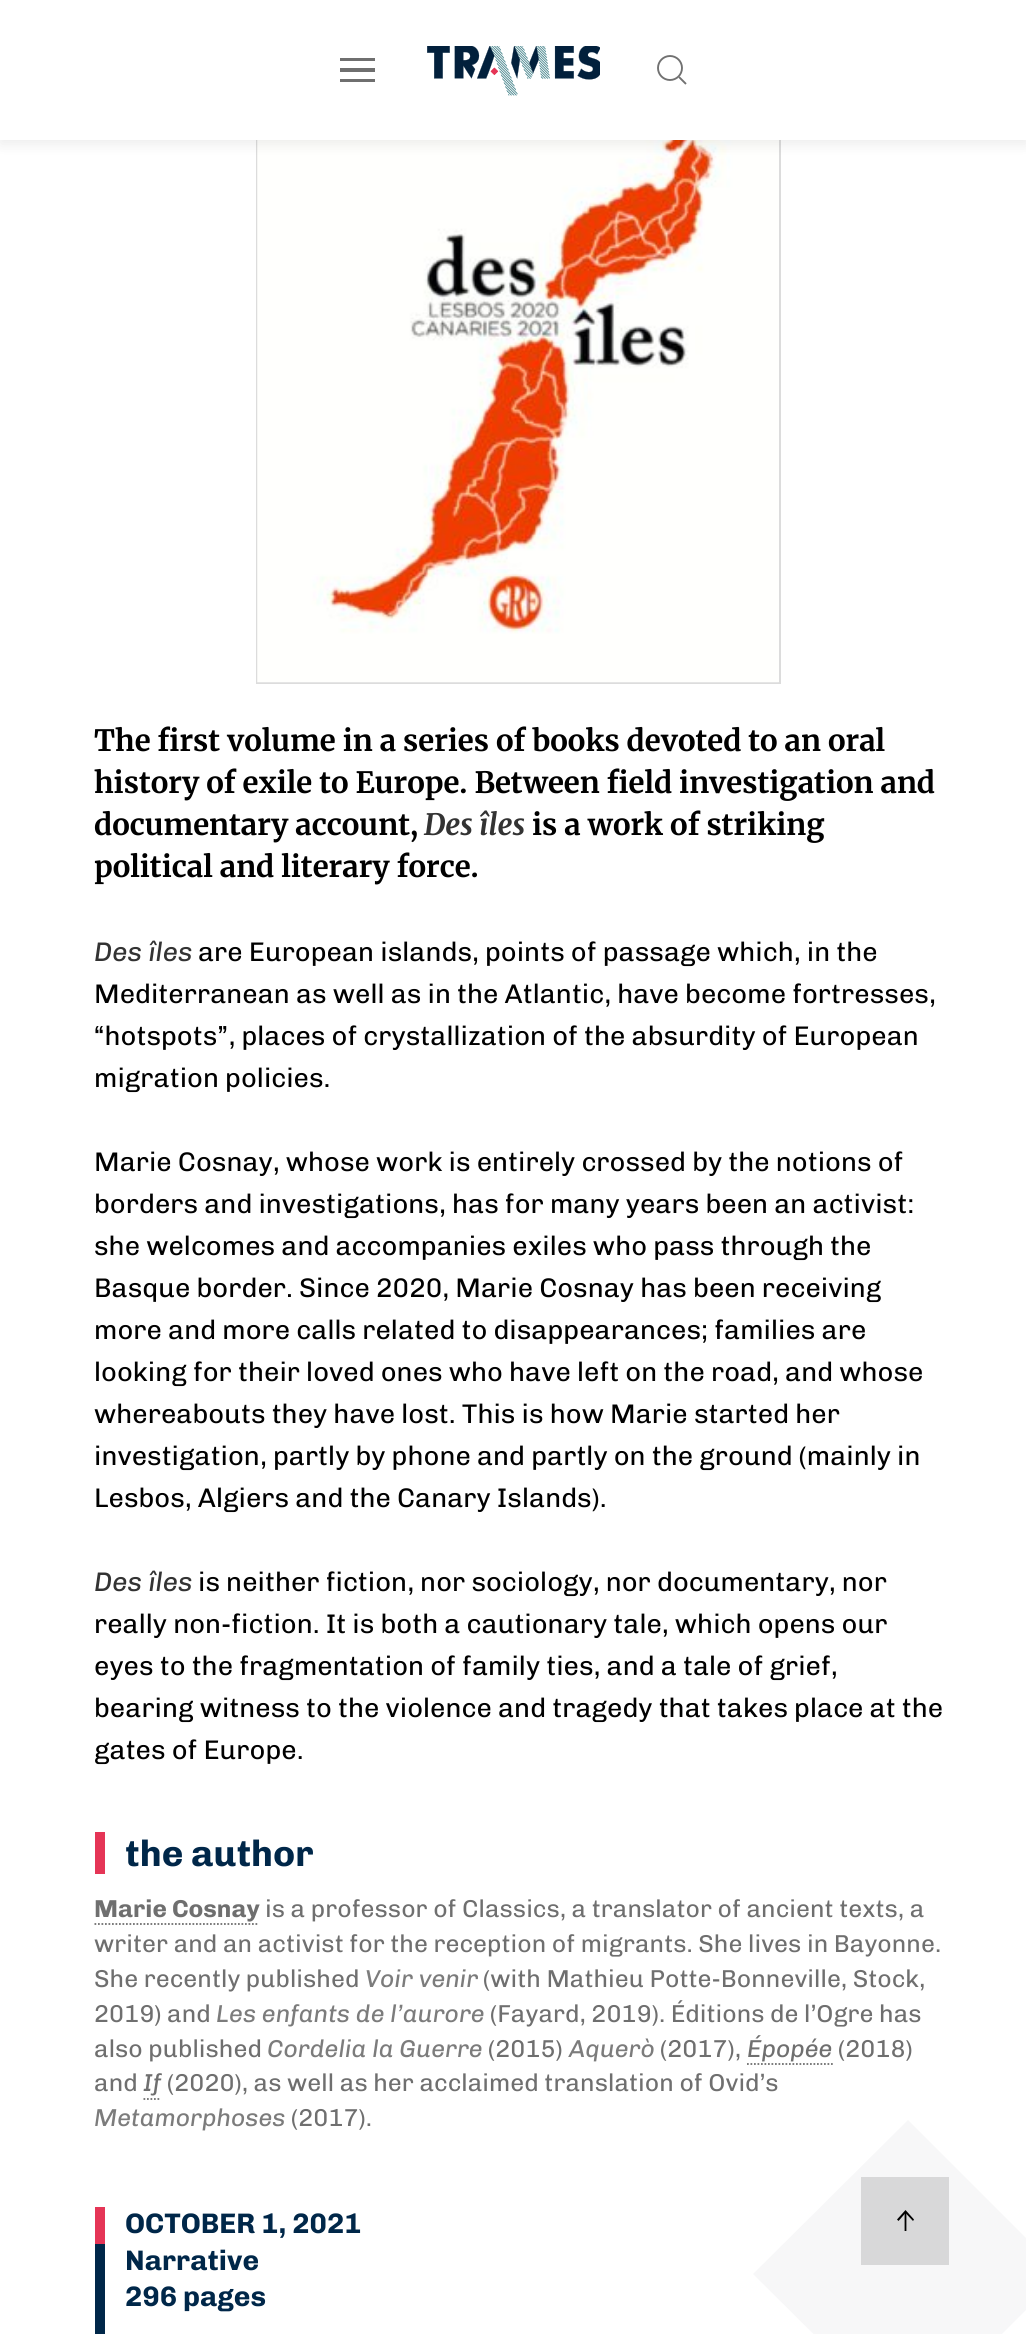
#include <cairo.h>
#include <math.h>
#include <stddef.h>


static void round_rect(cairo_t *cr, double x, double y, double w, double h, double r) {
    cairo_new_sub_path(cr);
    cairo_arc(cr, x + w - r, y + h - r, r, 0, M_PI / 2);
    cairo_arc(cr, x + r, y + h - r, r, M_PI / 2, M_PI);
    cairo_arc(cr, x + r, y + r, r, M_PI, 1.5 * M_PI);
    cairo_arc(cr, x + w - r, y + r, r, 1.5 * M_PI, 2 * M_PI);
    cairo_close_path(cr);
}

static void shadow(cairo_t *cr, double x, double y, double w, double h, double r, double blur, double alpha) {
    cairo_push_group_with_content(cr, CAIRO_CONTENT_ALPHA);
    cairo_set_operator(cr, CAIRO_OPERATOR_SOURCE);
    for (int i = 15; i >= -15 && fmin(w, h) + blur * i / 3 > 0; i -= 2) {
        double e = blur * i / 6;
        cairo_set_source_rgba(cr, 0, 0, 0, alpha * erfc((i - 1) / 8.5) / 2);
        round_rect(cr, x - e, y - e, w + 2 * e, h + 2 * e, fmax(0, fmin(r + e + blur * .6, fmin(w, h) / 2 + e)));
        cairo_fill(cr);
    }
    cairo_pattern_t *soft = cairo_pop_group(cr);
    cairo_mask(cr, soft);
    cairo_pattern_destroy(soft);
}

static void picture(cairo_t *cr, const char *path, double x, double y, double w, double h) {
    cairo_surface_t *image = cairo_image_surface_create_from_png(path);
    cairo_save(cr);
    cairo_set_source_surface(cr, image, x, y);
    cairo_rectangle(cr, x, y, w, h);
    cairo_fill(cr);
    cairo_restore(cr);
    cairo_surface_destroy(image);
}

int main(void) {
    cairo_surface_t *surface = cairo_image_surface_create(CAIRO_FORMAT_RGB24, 1026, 2334);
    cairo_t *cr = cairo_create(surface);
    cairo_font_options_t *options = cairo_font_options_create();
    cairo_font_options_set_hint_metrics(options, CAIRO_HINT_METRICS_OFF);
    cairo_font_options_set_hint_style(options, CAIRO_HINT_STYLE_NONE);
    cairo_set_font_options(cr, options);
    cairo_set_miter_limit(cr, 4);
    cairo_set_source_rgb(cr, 1, 1, 1);
    cairo_paint(cr);
    cairo_rectangle(cr, 257, -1, 523, 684);
    cairo_set_source_rgb(cr, 0.863, 0.863, 0.863);
    cairo_stroke(cr);
    picture(cr, "img3.png", 257, 140, 522, 543);
    cairo_set_source_rgb(cr, 0, 0, 0);
    shadow(cr, 0, 4, 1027, 140, 0, 7, 0.08);
    cairo_set_source_rgb(cr, 1, 1, 1);
    cairo_rectangle(cr, 0, 0, 1026, 140);
    cairo_fill(cr);
    cairo_set_source_rgb(cr, 0.435, 0.435, 0.435);
    cairo_rectangle(cr, 340, 68, 35, 4);
    cairo_fill(cr);
    cairo_rectangle(cr, 340, 58, 35, 3);
    cairo_fill(cr);
    cairo_rectangle(cr, 340, 79, 35, 3);
    cairo_fill(cr);
    picture(cr, "img1.png", 427, 46, 173, 50);
    picture(cr, "img2.png", 427, 46, 173, 50);
    cairo_arc(cr, 670, 68, 12, 0, 2 * M_PI);
    cairo_set_source_rgb(cr, 0.443, 0.443, 0.443);
    cairo_set_line_width(cr, 1.9);
    cairo_stroke(cr);
    cairo_new_path(cr);
    cairo_move_to(cr, 679, 77);
    cairo_line_to(cr, 686, 84);
    cairo_close_path(cr);
    cairo_stroke(cr);
    cairo_set_source_rgb(cr, 0.965, 0.965, 0.969);
    cairo_new_path(cr);
    cairo_move_to(cr, 753, 2274);
    cairo_line_to(cr, 908, 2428);
    cairo_line_to(cr, 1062, 2274);
    cairo_line_to(cr, 908, 2120);
    cairo_line_to(cr, 753, 2274);
    cairo_fill(cr);
    cairo_select_font_face(cr, "Merriweather Light", CAIRO_FONT_SLANT_NORMAL, CAIRO_FONT_WEIGHT_NORMAL);
    cairo_set_font_size(cr, 29.4);
    cairo_set_source_rgb(cr, 0, 0, 0);
    cairo_move_to(cr, 94, 751);
    cairo_show_text(cr, "The first volume in a series of books devoted to an oral");
    cairo_move_to(cr, 94, 793);
    cairo_show_text(cr, "history of exile to Europe. Between field investigation and");
    cairo_move_to(cr, 94, 835);
    cairo_show_text(cr, "documentary account,");
    cairo_select_font_face(cr, "Merriweather Light", CAIRO_FONT_SLANT_ITALIC, CAIRO_FONT_WEIGHT_NORMAL);
    cairo_set_source_rgb(cr, 0.2, 0.2, 0.2);
    cairo_move_to(cr, 424, 835);
    cairo_show_text(cr, "Des îles");
    cairo_select_font_face(cr, "Merriweather Light", CAIRO_FONT_SLANT_NORMAL, CAIRO_FONT_WEIGHT_NORMAL);
    cairo_set_source_rgb(cr, 0, 0, 0);
    cairo_move_to(cr, 532, 835);
    cairo_show_text(cr, "is a work of striking");
    cairo_move_to(cr, 94, 877);
    cairo_show_text(cr, "political and literary force.");
    cairo_select_font_face(cr, "Chivo", CAIRO_FONT_SLANT_ITALIC, CAIRO_FONT_WEIGHT_NORMAL);
    cairo_set_font_size(cr, 26.95);
    cairo_set_source_rgb(cr, 0.2, 0.2, 0.2);
    cairo_move_to(cr, 94, 961);
    cairo_show_text(cr, "Des îles");
    cairo_select_font_face(cr, "Chivo", CAIRO_FONT_SLANT_NORMAL, CAIRO_FONT_WEIGHT_NORMAL);
    cairo_set_source_rgb(cr, 0, 0, 0);
    cairo_move_to(cr, 198, 961);
    cairo_show_text(cr, "are European islands, points of passage which, in the");
    cairo_move_to(cr, 94, 1003);
    cairo_show_text(cr, "Mediterranean as well as in the Atlantic, have become fortresses,");
    cairo_move_to(cr, 94, 1045);
    cairo_show_text(cr, "“hotspots”, places of crystallization of the absurdity of European");
    cairo_move_to(cr, 94, 1087);
    cairo_show_text(cr, "migration policies.");
    cairo_move_to(cr, 94, 1171);
    cairo_show_text(cr, "Marie Cosnay, whose work is entirely crossed by the notions of");
    cairo_move_to(cr, 94, 1213);
    cairo_show_text(cr, "borders and investigations, has for many years been an activist:");
    cairo_move_to(cr, 94, 1255);
    cairo_show_text(cr, "she welcomes and accompanies exiles who pass through the");
    cairo_move_to(cr, 94, 1297);
    cairo_show_text(cr, "Basque border. Since 2020, Marie Cosnay has been receiving");
    cairo_move_to(cr, 94, 1339);
    cairo_show_text(cr, "more and more calls related to disappearances; families are");
    cairo_move_to(cr, 94, 1381);
    cairo_show_text(cr, "looking for their loved ones who have left on the road, and whose");
    cairo_move_to(cr, 94, 1423);
    cairo_show_text(cr, "whereabouts they have lost. This is how Marie started her");
    cairo_move_to(cr, 94, 1465);
    cairo_show_text(cr, "investigation, partly by phone and partly on the ground (mainly in");
    cairo_move_to(cr, 94, 1507);
    cairo_show_text(cr, "Lesbos, Algiers and the Canary Islands).");
    cairo_select_font_face(cr, "Chivo", CAIRO_FONT_SLANT_ITALIC, CAIRO_FONT_WEIGHT_NORMAL);
    cairo_set_source_rgb(cr, 0.2, 0.2, 0.2);
    cairo_move_to(cr, 94, 1591);
    cairo_show_text(cr, "Des îles");
    cairo_select_font_face(cr, "Chivo", CAIRO_FONT_SLANT_NORMAL, CAIRO_FONT_WEIGHT_NORMAL);
    cairo_set_source_rgb(cr, 0, 0, 0);
    cairo_move_to(cr, 198, 1591);
    cairo_show_text(cr, "is neither fiction, nor sociology, nor documentary, nor");
    cairo_move_to(cr, 94, 1633);
    cairo_show_text(cr, "really non-fiction. It is both a cautionary tale, which opens our");
    cairo_move_to(cr, 94, 1675);
    cairo_show_text(cr, "eyes to the fragmentation of family ties, and a tale of grief,");
    cairo_move_to(cr, 94, 1717);
    cairo_show_text(cr, "bearing witness to the violence and tragedy that takes place at the");
    cairo_move_to(cr, 94, 1759);
    cairo_show_text(cr, "gates of Europe.");
    cairo_set_source_rgb(cr, 0.898, 0.208, 0.337);
    cairo_rectangle(cr, 95, 1832, 10, 42);
    cairo_fill(cr);
    cairo_select_font_face(cr, "Chivo", CAIRO_FONT_SLANT_NORMAL, CAIRO_FONT_WEIGHT_BOLD);
    cairo_set_font_size(cr, 36.75);
    cairo_set_source_rgb(cr, 0, 0.153, 0.286);
    cairo_move_to(cr, 125, 1866);
    cairo_show_text(cr, "the author");
    cairo_set_font_size(cr, 24.5);
    cairo_set_source_rgb(cr, 0.435, 0.435, 0.435);
    cairo_move_to(cr, 94, 1917);
    cairo_show_text(cr, "Marie Cosnay");
    cairo_new_path(cr);
    cairo_move_to(cr, 94.5, 1924);
    cairo_line_to(cr, 259, 1924);
    cairo_set_line_width(cr, 1.8);
    cairo_set_dash(cr, (double[]){1.75, 1.75}, 2, 0);
    cairo_stroke(cr);
    cairo_select_font_face(cr, "Chivo", CAIRO_FONT_SLANT_NORMAL, CAIRO_FONT_WEIGHT_NORMAL);
    cairo_move_to(cr, 265, 1917);
    cairo_show_text(cr, "is a professor of Classics, a translator of ancient texts, a");
    cairo_move_to(cr, 94, 1952);
    cairo_show_text(cr, "writer and an activist for the reception of migrants. She lives in Bayonne.");
    cairo_move_to(cr, 94, 1987);
    cairo_show_text(cr, "She recently published");
    cairo_select_font_face(cr, "Chivo", CAIRO_FONT_SLANT_ITALIC, CAIRO_FONT_WEIGHT_NORMAL);
    cairo_set_source_rgb(cr, 0.486, 0.486, 0.486);
    cairo_move_to(cr, 365, 1987);
    cairo_show_text(cr, "Voir venir");
    cairo_select_font_face(cr, "Chivo", CAIRO_FONT_SLANT_NORMAL, CAIRO_FONT_WEIGHT_NORMAL);
    cairo_set_source_rgb(cr, 0.435, 0.435, 0.435);
    cairo_move_to(cr, 483, 1987);
    cairo_show_text(cr, "(with Mathieu Potte-Bonneville, Stock,");
    cairo_move_to(cr, 94, 2022);
    cairo_show_text(cr, "2019) and");
    cairo_select_font_face(cr, "Chivo", CAIRO_FONT_SLANT_ITALIC, CAIRO_FONT_WEIGHT_NORMAL);
    cairo_set_source_rgb(cr, 0.486, 0.486, 0.486);
    cairo_move_to(cr, 216, 2022);
    cairo_show_text(cr, "Les enfants de l’aurore");
    cairo_select_font_face(cr, "Chivo", CAIRO_FONT_SLANT_NORMAL, CAIRO_FONT_WEIGHT_NORMAL);
    cairo_set_source_rgb(cr, 0.435, 0.435, 0.435);
    cairo_move_to(cr, 490, 2022);
    cairo_show_text(cr, "(Fayard, 2019). Éditions de l’Ogre has");
    cairo_move_to(cr, 94, 2057);
    cairo_show_text(cr, "also published");
    cairo_select_font_face(cr, "Chivo", CAIRO_FONT_SLANT_ITALIC, CAIRO_FONT_WEIGHT_NORMAL);
    cairo_set_source_rgb(cr, 0.486, 0.486, 0.486);
    cairo_move_to(cr, 267, 2057);
    cairo_show_text(cr, "Cordelia la Guerre");
    cairo_select_font_face(cr, "Chivo", CAIRO_FONT_SLANT_NORMAL, CAIRO_FONT_WEIGHT_NORMAL);
    cairo_set_source_rgb(cr, 0.435, 0.435, 0.435);
    cairo_move_to(cr, 488, 2057);
    cairo_show_text(cr, "(2015)");
    cairo_select_font_face(cr, "Chivo", CAIRO_FONT_SLANT_ITALIC, CAIRO_FONT_WEIGHT_NORMAL);
    cairo_set_source_rgb(cr, 0.486, 0.486, 0.486);
    cairo_move_to(cr, 569, 2057);
    cairo_show_text(cr, "Aquerò");
    cairo_select_font_face(cr, "Chivo", CAIRO_FONT_SLANT_NORMAL, CAIRO_FONT_WEIGHT_NORMAL);
    cairo_set_source_rgb(cr, 0.435, 0.435, 0.435);
    cairo_move_to(cr, 660, 2057);
    cairo_show_text(cr, "(2017),");
    cairo_select_font_face(cr, "Chivo", CAIRO_FONT_SLANT_ITALIC, CAIRO_FONT_WEIGHT_NORMAL);
    cairo_move_to(cr, 747, 2057);
    cairo_show_text(cr, "Épopée");
    cairo_new_path(cr);
    cairo_move_to(cr, 747, 2064);
    cairo_line_to(cr, 833, 2064);
    cairo_stroke(cr);
    cairo_select_font_face(cr, "Chivo", CAIRO_FONT_SLANT_NORMAL, CAIRO_FONT_WEIGHT_NORMAL);
    cairo_move_to(cr, 838, 2057);
    cairo_show_text(cr, "(2018)");
    cairo_move_to(cr, 94, 2091);
    cairo_show_text(cr, "and");
    cairo_select_font_face(cr, "Chivo", CAIRO_FONT_SLANT_ITALIC, CAIRO_FONT_WEIGHT_NORMAL);
    cairo_move_to(cr, 143, 2091);
    cairo_show_text(cr, "If");
    cairo_new_path(cr);
    cairo_move_to(cr, 143.5, 2099);
    cairo_line_to(cr, 161, 2099);
    cairo_stroke(cr);
    cairo_select_font_face(cr, "Chivo", CAIRO_FONT_SLANT_NORMAL, CAIRO_FONT_WEIGHT_NORMAL);
    cairo_move_to(cr, 167, 2091);
    cairo_show_text(cr, "(2020), as well as her acclaimed translation of Ovid’s");
    cairo_select_font_face(cr, "Chivo", CAIRO_FONT_SLANT_ITALIC, CAIRO_FONT_WEIGHT_NORMAL);
    cairo_set_source_rgb(cr, 0.486, 0.486, 0.486);
    cairo_move_to(cr, 94, 2126);
    cairo_show_text(cr, "Metamorphoses");
    cairo_select_font_face(cr, "Chivo", CAIRO_FONT_SLANT_NORMAL, CAIRO_FONT_WEIGHT_NORMAL);
    cairo_set_source_rgb(cr, 0.435, 0.435, 0.435);
    cairo_move_to(cr, 291, 2126);
    cairo_show_text(cr, "(2017).");
    cairo_set_source_rgb(cr, 0.898, 0.208, 0.337);
    cairo_rectangle(cr, 95, 2207, 10, 37);
    cairo_fill(cr);
    cairo_select_font_face(cr, "Chivo", CAIRO_FONT_SLANT_NORMAL, CAIRO_FONT_WEIGHT_BOLD);
    cairo_set_font_size(cr, 28.25);
    cairo_set_source_rgb(cr, 0, 0.153, 0.286);
    cairo_move_to(cr, 125, 2233);
    cairo_show_text(cr, "OCTOBER 1, 2021");
    cairo_rectangle(cr, 95, 2244, 10, 90);
    cairo_fill(cr);
    cairo_move_to(cr, 125, 2270);
    cairo_show_text(cr, "Narrative");
    cairo_move_to(cr, 125, 2306);
    cairo_show_text(cr, "296 pages");
    cairo_set_source_rgb(cr, 0.847, 0.847, 0.851);
    cairo_rectangle(cr, 861, 2177, 88, 88);
    cairo_fill(cr);
    cairo_set_source_rgb(cr, 0, 0, 0);
    cairo_new_path(cr);
    cairo_move_to(cr, 905.5, 2210);
    cairo_line_to(cr, 914, 2219.5);
    cairo_line_to(cr, 913, 2221);
    cairo_line_to(cr, 905.5, 2213);
    cairo_line_to(cr, 898.5, 2221);
    cairo_line_to(cr, 897, 2219.5);
    cairo_close_path(cr);
    cairo_fill(cr);
    cairo_new_path(cr);
    cairo_move_to(cr, 905.5, 2231);
    cairo_line_to(cr, 905.5, 2212);
    cairo_set_dash(cr, NULL, 0, 0);
    cairo_stroke(cr);
    cairo_surface_write_to_png(surface, "page.png");
    cairo_font_options_destroy(options);
    cairo_destroy(cr);
    cairo_surface_destroy(surface);
    return 0;
}
